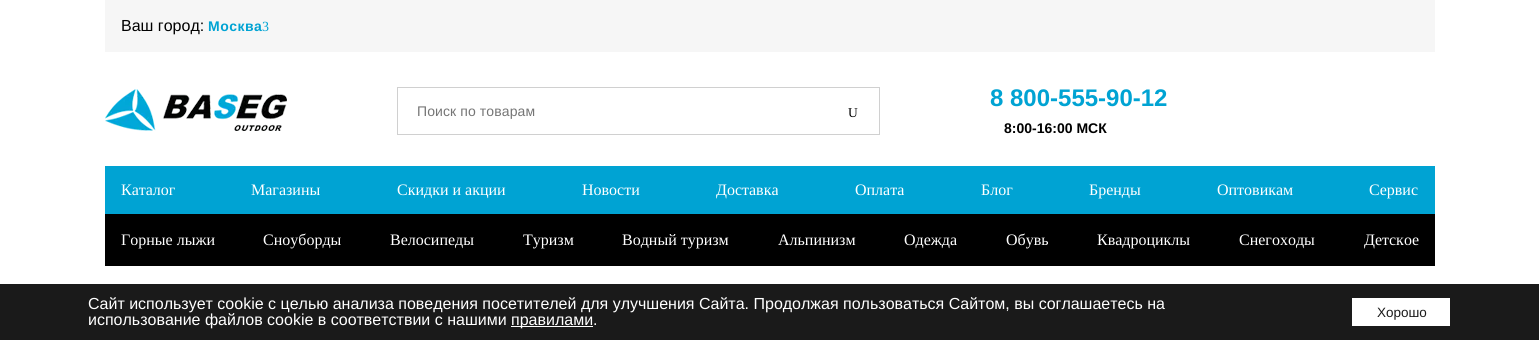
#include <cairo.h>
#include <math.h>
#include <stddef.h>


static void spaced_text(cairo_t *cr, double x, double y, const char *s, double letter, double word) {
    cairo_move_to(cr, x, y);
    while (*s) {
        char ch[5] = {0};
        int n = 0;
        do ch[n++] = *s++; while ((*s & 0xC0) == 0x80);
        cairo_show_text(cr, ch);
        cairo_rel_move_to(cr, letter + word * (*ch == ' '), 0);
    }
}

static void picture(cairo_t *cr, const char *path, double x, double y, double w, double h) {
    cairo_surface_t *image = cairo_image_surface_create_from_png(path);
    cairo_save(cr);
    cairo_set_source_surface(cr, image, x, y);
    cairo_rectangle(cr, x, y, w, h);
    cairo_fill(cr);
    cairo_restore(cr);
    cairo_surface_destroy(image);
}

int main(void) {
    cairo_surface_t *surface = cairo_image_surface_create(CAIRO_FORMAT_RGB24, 1539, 340);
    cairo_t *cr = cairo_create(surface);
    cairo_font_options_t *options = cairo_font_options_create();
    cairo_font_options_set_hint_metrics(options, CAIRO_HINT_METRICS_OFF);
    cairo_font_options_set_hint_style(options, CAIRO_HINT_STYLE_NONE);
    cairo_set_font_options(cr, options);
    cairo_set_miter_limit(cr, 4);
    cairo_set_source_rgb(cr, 1, 1, 1);
    cairo_paint(cr);
    cairo_set_source_rgb(cr, 0.961, 0.961, 0.961);
    cairo_rectangle(cr, 105, 0, 1330, 52);
    cairo_fill(cr);
    cairo_select_font_face(cr, "Liberation Sans", CAIRO_FONT_SLANT_NORMAL, CAIRO_FONT_WEIGHT_NORMAL);
    cairo_set_font_size(cr, 16);
    cairo_set_source_rgb(cr, 0, 0, 0);
    cairo_move_to(cr, 121, 31);
    cairo_show_text(cr, "Ваш город:");
    cairo_select_font_face(cr, "Liberation Sans", CAIRO_FONT_SLANT_NORMAL, CAIRO_FONT_WEIGHT_BOLD);
    cairo_set_font_size(cr, 14);
    cairo_set_source_rgb(cr, 0, 0.639, 0.827);
    spaced_text(cr, 208, 31, "Москва", 0.5, 0);
    cairo_select_font_face(cr, "Liberation Serif", CAIRO_FONT_SLANT_NORMAL, CAIRO_FONT_WEIGHT_NORMAL);
    spaced_text(cr, 262, 31, "3", 0.5, 0);
    picture(cr, "img1.png", 105, 89, 182, 42);
    cairo_rectangle(cr, 397.5, 87.5, 482, 47);
    cairo_set_source_rgb(cr, 0.816, 0.816, 0.816);
    cairo_set_line_width(cr, 1);
    cairo_stroke(cr);
    cairo_select_font_face(cr, "Liberation Sans", CAIRO_FONT_SLANT_NORMAL, CAIRO_FONT_WEIGHT_NORMAL);
    cairo_set_source_rgb(cr, 0.459, 0.459, 0.459);
    spaced_text(cr, 417, 116, "Поиск по товарам", 0.1, 0);
    cairo_select_font_face(cr, "Liberation Serif", CAIRO_FONT_SLANT_NORMAL, CAIRO_FONT_WEIGHT_NORMAL);
    cairo_set_font_size(cr, 13.5);
    cairo_set_source_rgb(cr, 0, 0, 0);
    cairo_move_to(cr, 848, 117);
    cairo_show_text(cr, "U");
    cairo_select_font_face(cr, "Liberation Sans", CAIRO_FONT_SLANT_NORMAL, CAIRO_FONT_WEIGHT_BOLD);
    cairo_set_font_size(cr, 24);
    cairo_set_source_rgb(cr, 0, 0.639, 0.827);
    cairo_move_to(cr, 990, 106);
    cairo_show_text(cr, "8 800-555-90-12");
    cairo_set_font_size(cr, 14);
    cairo_set_source_rgb(cr, 0, 0, 0);
    cairo_move_to(cr, 1004, 133);
    cairo_show_text(cr, "8:00-16:00 МСК");
    cairo_set_source_rgb(cr, 0, 0.639, 0.827);
    cairo_rectangle(cr, 105, 166, 1330, 48);
    cairo_fill(cr);
    cairo_select_font_face(cr, "Liberation Serif", CAIRO_FONT_SLANT_NORMAL, CAIRO_FONT_WEIGHT_NORMAL);
    cairo_set_font_size(cr, 16);
    cairo_set_source_rgb(cr, 1, 1, 1);
    cairo_move_to(cr, 121, 195);
    cairo_show_text(cr, "Каталог");
    cairo_move_to(cr, 251, 195);
    cairo_show_text(cr, "Магазины");
    cairo_move_to(cr, 397, 195);
    cairo_show_text(cr, "Скидки и акции");
    cairo_move_to(cr, 582, 195);
    cairo_show_text(cr, "Новости");
    cairo_move_to(cr, 716, 195);
    cairo_show_text(cr, "Доставка");
    cairo_move_to(cr, 855, 195);
    cairo_show_text(cr, "Оплата");
    cairo_move_to(cr, 981, 195);
    cairo_show_text(cr, "Блог");
    cairo_move_to(cr, 1089, 195);
    cairo_show_text(cr, "Бренды");
    cairo_move_to(cr, 1217, 195);
    cairo_show_text(cr, "Оптовикам");
    cairo_move_to(cr, 1369, 195);
    cairo_show_text(cr, "Сервис");
    cairo_set_source_rgb(cr, 0, 0, 0);
    cairo_rectangle(cr, 105, 214, 1330, 52);
    cairo_fill(cr);
    cairo_set_source_rgb(cr, 1, 1, 1);
    cairo_move_to(cr, 121, 245);
    cairo_show_text(cr, "Горные лыжи");
    cairo_move_to(cr, 263, 245);
    cairo_show_text(cr, "Сноуборды");
    cairo_move_to(cr, 390, 245);
    cairo_show_text(cr, "Велосипеды");
    cairo_move_to(cr, 523, 245);
    cairo_show_text(cr, "Туризм");
    cairo_move_to(cr, 622, 245);
    cairo_show_text(cr, "Водный туризм");
    cairo_move_to(cr, 778, 245);
    cairo_show_text(cr, "Альпинизм");
    cairo_move_to(cr, 904, 245);
    cairo_show_text(cr, "Одежда");
    cairo_move_to(cr, 1006, 245);
    cairo_show_text(cr, "Обувь");
    cairo_move_to(cr, 1097, 245);
    cairo_show_text(cr, "Квадроциклы");
    cairo_move_to(cr, 1239, 245);
    cairo_show_text(cr, "Снегоходы");
    cairo_move_to(cr, 1364, 245);
    cairo_show_text(cr, "Детское");
    cairo_set_source_rgb(cr, 0.102, 0.102, 0.102);
    cairo_rectangle(cr, 0, 284, 1539, 56);
    cairo_fill(cr);
    cairo_select_font_face(cr, "Liberation Sans", CAIRO_FONT_SLANT_NORMAL, CAIRO_FONT_WEIGHT_NORMAL);
    cairo_set_source_rgb(cr, 1, 1, 1);
    cairo_move_to(cr, 88, 309);
    cairo_show_text(cr, "Сайт использует cookie с целью анализа поведения посетителей для улучшения Сайта. Продолжая пользоваться Сайтом, вы соглашаетесь на");
    cairo_move_to(cr, 88, 325);
    cairo_show_text(cr, "использование файлов cookie в соответствии с нашими");
    cairo_rectangle(cr, 511, 326, 82, 1);
    cairo_fill(cr);
    cairo_move_to(cr, 511, 325);
    cairo_show_text(cr, "правилами.");
    cairo_rectangle(cr, 1352, 298, 98, 28);
    cairo_fill(cr);
    cairo_set_font_size(cr, 13.5);
    cairo_set_source_rgb(cr, 0.102, 0.102, 0.102);
    cairo_move_to(cr, 1377, 317);
    cairo_show_text(cr, "Хорошо");
    cairo_surface_write_to_png(surface, "page.png");
    cairo_font_options_destroy(options);
    cairo_destroy(cr);
    cairo_surface_destroy(surface);
    return 0;
}
